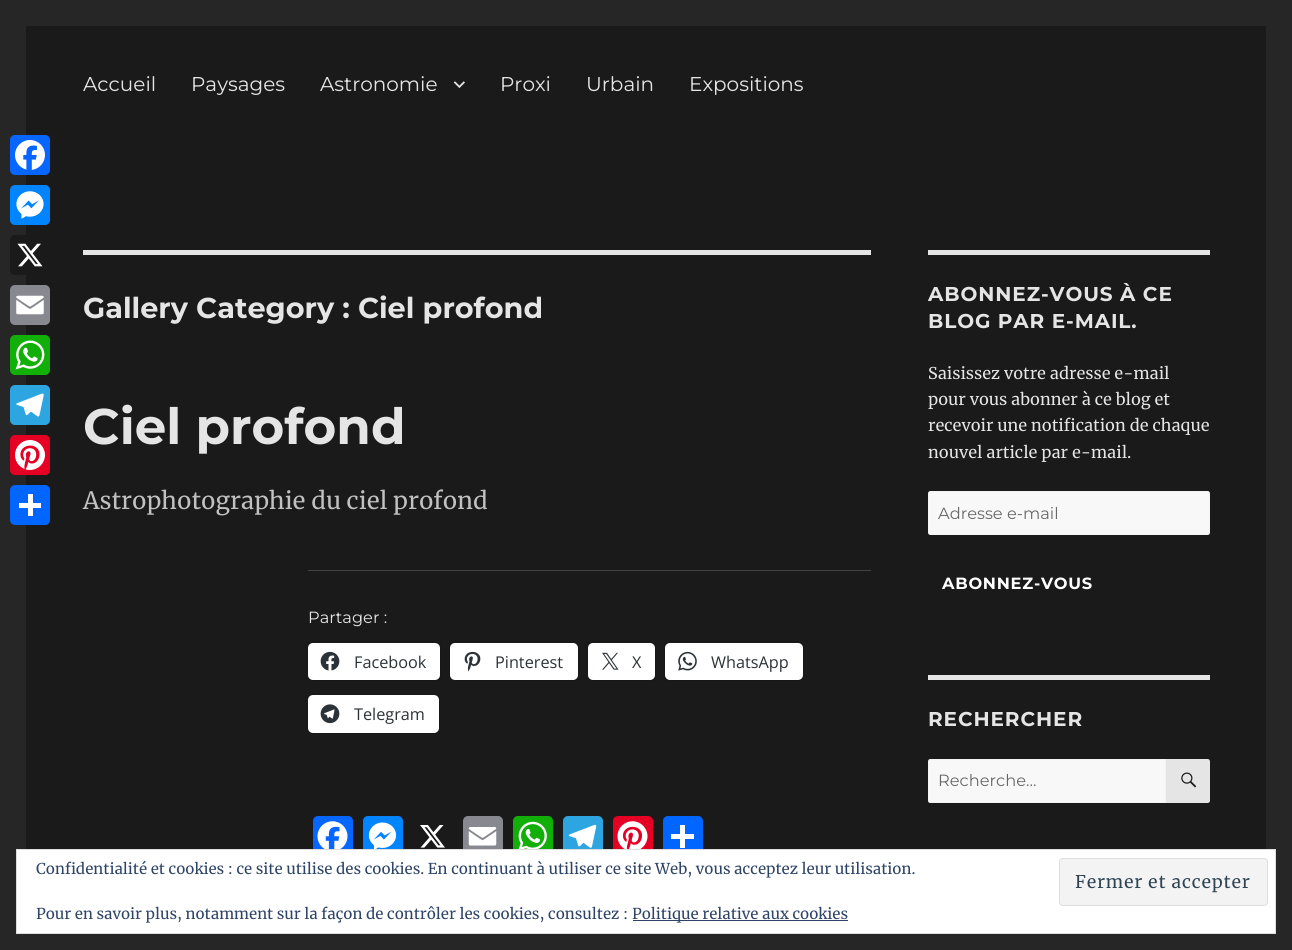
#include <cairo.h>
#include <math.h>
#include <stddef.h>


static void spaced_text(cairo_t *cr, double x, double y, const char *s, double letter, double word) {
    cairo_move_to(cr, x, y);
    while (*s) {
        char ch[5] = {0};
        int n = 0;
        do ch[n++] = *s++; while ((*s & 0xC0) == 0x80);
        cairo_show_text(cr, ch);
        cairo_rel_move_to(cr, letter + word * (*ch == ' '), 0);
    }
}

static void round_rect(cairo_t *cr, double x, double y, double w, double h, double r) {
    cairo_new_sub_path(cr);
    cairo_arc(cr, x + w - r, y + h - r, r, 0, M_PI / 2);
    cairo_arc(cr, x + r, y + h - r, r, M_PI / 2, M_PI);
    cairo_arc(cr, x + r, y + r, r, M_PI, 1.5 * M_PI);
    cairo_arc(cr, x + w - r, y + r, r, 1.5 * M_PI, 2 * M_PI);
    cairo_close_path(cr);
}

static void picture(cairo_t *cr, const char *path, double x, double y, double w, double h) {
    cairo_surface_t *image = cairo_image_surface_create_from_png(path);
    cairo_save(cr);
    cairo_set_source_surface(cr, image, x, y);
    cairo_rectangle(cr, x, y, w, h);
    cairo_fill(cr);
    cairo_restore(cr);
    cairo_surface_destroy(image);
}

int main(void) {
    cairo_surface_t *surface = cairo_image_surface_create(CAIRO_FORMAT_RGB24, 1292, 950);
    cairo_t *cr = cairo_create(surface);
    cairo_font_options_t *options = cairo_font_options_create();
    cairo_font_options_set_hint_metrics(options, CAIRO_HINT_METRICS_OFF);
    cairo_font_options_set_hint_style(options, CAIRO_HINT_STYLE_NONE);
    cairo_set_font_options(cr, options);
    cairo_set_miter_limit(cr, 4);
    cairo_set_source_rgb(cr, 0.149, 0.149, 0.149);
    cairo_paint(cr);
    cairo_set_source_rgb(cr, 0.102, 0.102, 0.102);
    cairo_rectangle(cr, 26, 26, 1240, 823);
    cairo_fill(cr);
    cairo_set_source_rgb(cr, 0.031, 0.4, 1);
    round_rect(cr, 10, 135, 40, 40, 5);
    cairo_fill(cr);
    picture(cr, "img1.png", 15, 140, 30, 30);
    cairo_set_source_rgb(cr, 0, 0.518, 1);
    round_rect(cr, 10, 185, 40, 40, 5);
    cairo_fill(cr);
    picture(cr, "img2.png", 16, 191, 28, 28);
    cairo_set_source_rgb(cr, 0.102, 0.102, 0.102);
    round_rect(cr, 10, 235, 40, 40, 5);
    cairo_fill(cr);
    picture(cr, "img3.png", 17, 243, 26, 24);
    cairo_set_source_rgb(cr, 0.533, 0.537, 0.565);
    round_rect(cr, 10, 285, 40, 40, 5);
    cairo_fill(cr);
    picture(cr, "img4.png", 16, 295, 28, 20);
    cairo_set_source_rgb(cr, 0.071, 0.686, 0.039);
    round_rect(cr, 10, 335, 40, 40, 5);
    cairo_fill(cr);
    picture(cr, "img5.png", 15, 340, 30, 30);
    cairo_set_source_rgb(cr, 0.173, 0.647, 0.878);
    round_rect(cr, 10, 385, 40, 40, 5);
    cairo_fill(cr);
    picture(cr, "img6.png", 16, 393, 28, 24);
    cairo_set_source_rgb(cr, 0.902, 0, 0.137);
    round_rect(cr, 10, 435, 40, 40, 5);
    cairo_fill(cr);
    picture(cr, "img7.png", 15, 440, 30, 30);
    cairo_set_source_rgb(cr, 0.004, 0.4, 1);
    round_rect(cr, 10, 485, 40, 40, 5);
    cairo_fill(cr);
    cairo_set_source_rgb(cr, 1, 1, 1);
    cairo_rectangle(cr, 28, 494, 5, 22);
    cairo_fill(cr);
    cairo_rectangle(cr, 19, 503, 22, 5);
    cairo_fill(cr);
    cairo_select_font_face(cr, "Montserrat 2 Thin", CAIRO_FONT_SLANT_NORMAL, CAIRO_FONT_WEIGHT_NORMAL);
    cairo_set_font_size(cr, 20);
    cairo_set_source_rgb(cr, 0.898, 0.898, 0.898);
    cairo_move_to(cr, 83, 91);
    cairo_show_text(cr, "Accueil");
    cairo_move_to(cr, 191, 91);
    cairo_show_text(cr, "Paysages");
    cairo_move_to(cr, 320, 91);
    cairo_show_text(cr, "Astronomie");
    picture(cr, "img8.png", 453, 81, 12, 7);
    cairo_move_to(cr, 500, 91);
    cairo_show_text(cr, "Proxi");
    cairo_move_to(cr, 586, 91);
    cairo_show_text(cr, "Urbain");
    cairo_move_to(cr, 689, 91);
    cairo_show_text(cr, "Expositions");
    cairo_rectangle(cr, 83, 250, 788, 5);
    cairo_fill(cr);
    cairo_select_font_face(cr, "Montserrat Thin", CAIRO_FONT_SLANT_NORMAL, CAIRO_FONT_WEIGHT_NORMAL);
    cairo_set_font_size(cr, 28.75);
    cairo_move_to(cr, 83, 318);
    cairo_show_text(cr, "Gallery Category : Ciel profond");
    cairo_set_font_size(cr, 50);
    cairo_move_to(cr, 83, 444);
    cairo_show_text(cr, "Ciel profond");
    cairo_select_font_face(cr, "Merriweather", CAIRO_FONT_SLANT_NORMAL, CAIRO_FONT_WEIGHT_NORMAL);
    cairo_set_font_size(cr, 23.75);
    cairo_set_source_rgb(cr, 0.757, 0.757, 0.757);
    cairo_move_to(cr, 83, 509);
    cairo_show_text(cr, "Astrophotographie du ciel profond");
    cairo_set_source_rgb(cr, 0.263, 0.263, 0.263);
    cairo_rectangle(cr, 308, 570, 563, 1);
    cairo_fill(cr);
    cairo_select_font_face(cr, "Montserrat 2 Thin", CAIRO_FONT_SLANT_NORMAL, CAIRO_FONT_WEIGHT_NORMAL);
    cairo_set_font_size(cr, 16.25);
    cairo_set_source_rgb(cr, 0.898, 0.898, 0.898);
    cairo_move_to(cr, 308, 623);
    cairo_show_text(cr, "Partager :");
    round_rect(cr, 306.5, 641.5, 134, 39, 5.5);
    cairo_set_source_rgb(cr, 0.09, 0.09, 0.09);
    cairo_set_line_width(cr, 1);
    cairo_stroke(cr);
    cairo_set_source_rgb(cr, 1, 1, 1);
    round_rect(cr, 308, 643, 132, 37, 5);
    cairo_fill(cr);
    picture(cr, "img9.png", 320, 651, 20, 20);
    cairo_select_font_face(cr, "Open Sans", CAIRO_FONT_SLANT_NORMAL, CAIRO_FONT_WEIGHT_NORMAL);
    cairo_set_source_rgb(cr, 0.173, 0.2, 0.22);
    cairo_move_to(cr, 354, 668);
    cairo_show_text(cr, "Facebook");
    round_rect(cr, 449.5, 641.5, 129, 39, 5.5);
    cairo_set_source_rgb(cr, 0.09, 0.09, 0.09);
    cairo_stroke(cr);
    cairo_set_source_rgb(cr, 1, 1, 1);
    round_rect(cr, 450, 643, 128, 37, 5);
    cairo_fill(cr);
    picture(cr, "img10.png", 464, 651, 17, 21);
    cairo_set_source_rgb(cr, 0.173, 0.2, 0.22);
    cairo_move_to(cr, 495, 668);
    cairo_show_text(cr, "Pinterest");
    round_rect(cr, 586.5, 641.5, 69, 39, 5.5);
    cairo_set_source_rgb(cr, 0.09, 0.09, 0.09);
    cairo_stroke(cr);
    cairo_set_source_rgb(cr, 1, 1, 1);
    round_rect(cr, 588, 643, 67, 37, 5);
    cairo_fill(cr);
    picture(cr, "img11.png", 602, 652, 17, 18);
    cairo_set_source_rgb(cr, 0.173, 0.2, 0.22);
    cairo_move_to(cr, 632, 668);
    cairo_show_text(cr, "X");
    round_rect(cr, 664.5, 641.5, 139, 39, 5.5);
    cairo_set_source_rgb(cr, 0.09, 0.09, 0.09);
    cairo_stroke(cr);
    cairo_set_source_rgb(cr, 1, 1, 1);
    round_rect(cr, 665, 643, 138, 37, 5);
    cairo_fill(cr);
    picture(cr, "img12.png", 678, 651, 19, 20);
    cairo_set_source_rgb(cr, 0.173, 0.2, 0.22);
    cairo_move_to(cr, 711, 668);
    cairo_show_text(cr, "WhatsApp");
    round_rect(cr, 306.5, 694.5, 133, 39, 5.5);
    cairo_set_source_rgb(cr, 0.09, 0.09, 0.09);
    cairo_stroke(cr);
    cairo_set_source_rgb(cr, 1, 1, 1);
    round_rect(cr, 308, 695, 131, 38, 5);
    cairo_fill(cr);
    picture(cr, "img13.png", 320, 704, 20, 20);
    cairo_set_source_rgb(cr, 0.173, 0.2, 0.22);
    cairo_move_to(cr, 354, 720);
    cairo_show_text(cr, "Telegram");
    cairo_set_source_rgb(cr, 0.031, 0.4, 1);
    round_rect(cr, 313, 816, 40, 40, 5);
    cairo_fill(cr);
    picture(cr, "img14.png", 317, 821, 31, 28);
    cairo_set_source_rgb(cr, 0, 0.518, 1);
    round_rect(cr, 363, 816, 40, 40, 5);
    cairo_fill(cr);
    picture(cr, "img15.png", 368, 822, 29, 27);
    picture(cr, "img16.png", 420, 825, 25, 23);
    cairo_set_source_rgb(cr, 0.533, 0.537, 0.565);
    round_rect(cr, 463, 816, 40, 40, 5);
    cairo_fill(cr);
    picture(cr, "img17.png", 468, 827, 29, 19);
    cairo_set_source_rgb(cr, 0.071, 0.686, 0.039);
    round_rect(cr, 513, 816, 40, 40, 5);
    cairo_fill(cr);
    picture(cr, "img18.png", 518, 821, 29, 28);
    cairo_set_source_rgb(cr, 0.173, 0.647, 0.878);
    round_rect(cr, 563, 816, 40, 40, 5);
    cairo_fill(cr);
    picture(cr, "img19.png", 568, 824, 29, 24);
    cairo_set_source_rgb(cr, 0.902, 0, 0.137);
    round_rect(cr, 613, 816, 40, 40, 5);
    cairo_fill(cr);
    picture(cr, "img20.png", 617, 821, 31, 28);
    cairo_set_source_rgb(cr, 0.004, 0.4, 1);
    round_rect(cr, 663, 816, 40, 40, 5);
    cairo_fill(cr);
    cairo_set_source_rgb(cr, 1, 1, 1);
    cairo_rectangle(cr, 680, 825, 5, 23);
    cairo_fill(cr);
    cairo_rectangle(cr, 671, 834, 23, 5);
    cairo_fill(cr);
    cairo_set_source_rgb(cr, 0.898, 0.898, 0.898);
    cairo_rectangle(cr, 928, 250, 282, 5);
    cairo_fill(cr);
    cairo_select_font_face(cr, "Montserrat Thin", CAIRO_FONT_SLANT_NORMAL, CAIRO_FONT_WEIGHT_NORMAL);
    cairo_set_font_size(cr, 20);
    spaced_text(cr, 928, 301, "ABONNEZ-VOUS À CE", 0.9, 0);
    spaced_text(cr, 928, 328, "BLOG PAR E-MAIL.", 0.9, 0);
    cairo_select_font_face(cr, "Merriweather", CAIRO_FONT_SLANT_NORMAL, CAIRO_FONT_WEIGHT_NORMAL);
    cairo_set_font_size(cr, 16.25);
    cairo_move_to(cr, 928, 379);
    cairo_show_text(cr, "Saisissez votre adresse e-mail");
    cairo_move_to(cr, 928, 405);
    cairo_show_text(cr, "pour vous abonner à ce blog et");
    cairo_move_to(cr, 928, 431);
    cairo_show_text(cr, "recevoir une notification de chaque");
    cairo_move_to(cr, 928, 458);
    cairo_show_text(cr, "nouvel article par e-mail.");
    cairo_set_source_rgb(cr, 0.969, 0.969, 0.969);
    round_rect(cr, 928, 491, 282, 44, 2.5);
    cairo_fill(cr);
    round_rect(cr, 928.5, 491.5, 281, 43, 2);
    cairo_set_source_rgba(cr, 0.898, 0.898, 0.898, 0.2);
    cairo_stroke(cr);
    cairo_select_font_face(cr, "Montserrat 2 Thin", CAIRO_FONT_SLANT_NORMAL, CAIRO_FONT_WEIGHT_NORMAL);
    cairo_set_source_rgb(cr, 0.408, 0.408, 0.408);
    cairo_move_to(cr, 938, 519);
    cairo_show_text(cr, "Adresse e-mail");
    cairo_select_font_face(cr, "Montserrat Thin", CAIRO_FONT_SLANT_NORMAL, CAIRO_FONT_WEIGHT_NORMAL);
    cairo_set_source_rgb(cr, 1, 1, 1);
    spaced_text(cr, 942, 589, "ABONNEZ-VOUS", 0.75, 0);
    cairo_set_source_rgb(cr, 0.898, 0.898, 0.898);
    cairo_rectangle(cr, 928, 675, 282, 5);
    cairo_fill(cr);
    cairo_set_font_size(cr, 20);
    spaced_text(cr, 928, 726, "RECHERCHER", 0.9, 0);
    cairo_set_source_rgb(cr, 0.969, 0.969, 0.969);
    cairo_new_path(cr);
    cairo_move_to(cr, 930.5, 759);
    cairo_line_to(cr, 1166, 759);
    cairo_line_to(cr, 1166, 803);
    cairo_line_to(cr, 930.5, 803);
    cairo_curve_to(cr, 929, 803, 928, 802, 928, 800.5);
    cairo_line_to(cr, 928, 761.5);
    cairo_curve_to(cr, 928, 760, 929, 759, 930.5, 759);
    cairo_close_path(cr);
    cairo_fill(cr);
    cairo_new_path(cr);
    cairo_move_to(cr, 930.5, 759.5);
    cairo_line_to(cr, 1165.5, 759.5);
    cairo_line_to(cr, 1165.5, 802.5);
    cairo_line_to(cr, 930.5, 802.5);
    cairo_curve_to(cr, 929.5, 802.5, 928.5, 801.5, 928.5, 800.5);
    cairo_line_to(cr, 928.5, 761.5);
    cairo_curve_to(cr, 928.5, 760.5, 929.5, 759.5, 930.5, 759.5);
    cairo_close_path(cr);
    cairo_set_source_rgba(cr, 0.898, 0.898, 0.898, 0.2);
    cairo_stroke(cr);
    cairo_select_font_face(cr, "Montserrat 2 Thin", CAIRO_FONT_SLANT_NORMAL, CAIRO_FONT_WEIGHT_NORMAL);
    cairo_set_font_size(cr, 16.25);
    cairo_set_source_rgb(cr, 0.408, 0.408, 0.408);
    cairo_move_to(cr, 938, 786);
    cairo_show_text(cr, "Recherche…");
    cairo_set_source_rgb(cr, 0.898, 0.898, 0.898);
    cairo_new_path(cr);
    cairo_move_to(cr, 1166, 759);
    cairo_line_to(cr, 1207.5, 759);
    cairo_curve_to(cr, 1209, 759, 1210, 760, 1210, 761.5);
    cairo_line_to(cr, 1210, 800.5);
    cairo_curve_to(cr, 1210, 802, 1209, 803, 1207.5, 803);
    cairo_line_to(cr, 1166, 803);
    cairo_close_path(cr);
    cairo_fill(cr);
    picture(cr, "img21.png", 1181, 772, 16, 16);
    cairo_set_source_rgb(cr, 1, 1, 1);
    cairo_rectangle(cr, 16.5, 849.5, 1259, 84);
    cairo_fill_preserve(cr);
    cairo_set_source_rgb(cr, 0.871, 0.871, 0.871);
    cairo_stroke(cr);
    cairo_select_font_face(cr, "Merriweather", CAIRO_FONT_SLANT_NORMAL, CAIRO_FONT_WEIGHT_NORMAL);
    cairo_set_font_size(cr, 15);
    cairo_set_source_rgb(cr, 0.18, 0.267, 0.404);
    cairo_move_to(cr, 36, 874);
    cairo_show_text(cr, "Confidentialité et cookies : ce site utilise des cookies. En continuant à utiliser ce site Web, vous acceptez leur utilisation.");
    cairo_set_source_rgb(cr, 0.953, 0.953, 0.953);
    round_rect(cr, 1059.5, 858.5, 208, 47, 3.5);
    cairo_fill_preserve(cr);
    cairo_set_source_rgb(cr, 0.871, 0.871, 0.871);
    cairo_stroke(cr);
    cairo_set_font_size(cr, 17.5);
    cairo_set_source_rgb(cr, 0.18, 0.267, 0.325);
    spaced_text(cr, 1075, 888, "Fermer et accepter", 0.8, 0);
    cairo_set_font_size(cr, 15);
    cairo_set_source_rgb(cr, 0.18, 0.267, 0.404);
    cairo_move_to(cr, 36, 919);
    cairo_show_text(cr, "Pour en savoir plus, notamment sur la façon de contrôler les cookies, consultez :");
    cairo_rectangle(cr, 633, 920, 215, 1);
    cairo_fill(cr);
    cairo_move_to(cr, 632, 919);
    cairo_show_text(cr, "Politique relative aux cookies");
    cairo_surface_write_to_png(surface, "page.png");
    cairo_font_options_destroy(options);
    cairo_destroy(cr);
    cairo_surface_destroy(surface);
    return 0;
}
